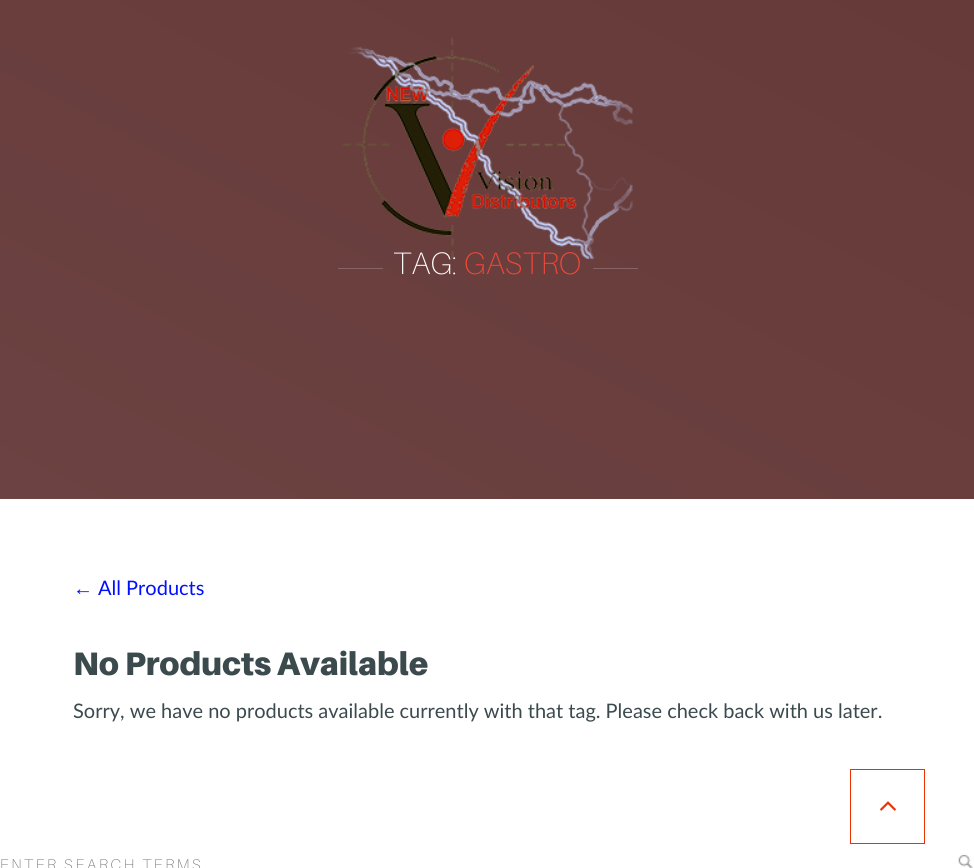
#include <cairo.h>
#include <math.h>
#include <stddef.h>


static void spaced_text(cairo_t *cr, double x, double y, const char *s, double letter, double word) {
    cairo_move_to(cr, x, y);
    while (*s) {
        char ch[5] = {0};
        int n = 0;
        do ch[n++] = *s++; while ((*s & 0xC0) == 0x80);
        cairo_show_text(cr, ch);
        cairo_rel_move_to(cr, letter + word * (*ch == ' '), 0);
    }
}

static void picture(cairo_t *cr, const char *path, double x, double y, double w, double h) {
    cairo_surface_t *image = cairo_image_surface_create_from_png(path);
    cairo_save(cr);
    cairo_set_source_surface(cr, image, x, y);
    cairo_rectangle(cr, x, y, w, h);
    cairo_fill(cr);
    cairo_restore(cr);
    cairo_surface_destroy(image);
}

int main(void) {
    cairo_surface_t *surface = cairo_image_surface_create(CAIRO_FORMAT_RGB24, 974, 868);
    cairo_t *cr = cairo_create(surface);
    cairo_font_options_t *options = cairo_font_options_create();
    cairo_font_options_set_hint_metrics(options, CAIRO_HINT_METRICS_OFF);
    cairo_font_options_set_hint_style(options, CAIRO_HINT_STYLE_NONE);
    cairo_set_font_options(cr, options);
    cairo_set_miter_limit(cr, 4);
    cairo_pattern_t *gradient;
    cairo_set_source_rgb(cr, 1, 1, 1);
    cairo_paint(cr);
    gradient = cairo_pattern_create_linear(691, -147, 284, 645);
    cairo_pattern_add_color_stop_rgba(gradient, 0, 0.4, 0.227, 0.22, 1);
    cairo_pattern_add_color_stop_rgba(gradient, 1, 0.424, 0.259, 0.259, 1);
    cairo_set_source(cr, gradient);
    cairo_pattern_destroy(gradient);
    cairo_rectangle(cr, 0, 0, 974, 499);
    cairo_fill(cr);
    cairo_select_font_face(cr, "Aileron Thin", CAIRO_FONT_SLANT_NORMAL, CAIRO_FONT_WEIGHT_NORMAL);
    cairo_set_font_size(cr, 31);
    cairo_set_source_rgb(cr, 1, 1, 1);
    cairo_move_to(cr, 393, 274);
    cairo_show_text(cr, "TAG:");
    cairo_set_source_rgb(cr, 0.941, 0.282, 0.216);
    cairo_move_to(cr, 464, 274);
    cairo_show_text(cr, "GASTRO");
    picture(cr, "img1.png", 342, 37, 291, 223);
    cairo_set_source_rgb(cr, 0.529, 0.396, 0.396);
    cairo_rectangle(cr, 338, 268, 45, 1);
    cairo_fill(cr);
    cairo_set_source_rgb(cr, 0.529, 0.396, 0.392);
    cairo_rectangle(cr, 593, 268, 45, 1);
    cairo_fill(cr);
    cairo_select_font_face(cr, "Liberation Serif", CAIRO_FONT_SLANT_NORMAL, CAIRO_FONT_WEIGHT_NORMAL);
    cairo_set_font_size(cr, 20);
    cairo_set_source_rgb(cr, 0, 0.059, 1);
    cairo_move_to(cr, 73, 595);
    cairo_show_text(cr, "←");
    cairo_select_font_face(cr, "Lato", CAIRO_FONT_SLANT_NORMAL, CAIRO_FONT_WEIGHT_NORMAL);
    cairo_move_to(cr, 98, 595);
    cairo_show_text(cr, "All Products");
    cairo_select_font_face(cr, "Aileron Black", CAIRO_FONT_SLANT_NORMAL, CAIRO_FONT_WEIGHT_NORMAL);
    cairo_set_font_size(cr, 32.5);
    cairo_set_source_rgb(cr, 0.231, 0.29, 0.302);
    cairo_move_to(cr, 73, 675);
    cairo_show_text(cr, "No Products Available");
    cairo_select_font_face(cr, "Lato", CAIRO_FONT_SLANT_NORMAL, CAIRO_FONT_WEIGHT_NORMAL);
    cairo_set_font_size(cr, 20);
    cairo_move_to(cr, 73, 718);
    cairo_show_text(cr, "Sorry, we have no products available currently with that tag. Please check back with us later.");
    picture(cr, "img2.png", 958, 854, 15, 14);
    cairo_select_font_face(cr, "Aileron Thin", CAIRO_FONT_SLANT_NORMAL, CAIRO_FONT_WEIGHT_NORMAL);
    cairo_set_font_size(cr, 15.6);
    cairo_set_source_rgb(cr, 0.459, 0.459, 0.459);
    spaced_text(cr, 0, 870, "ENTER SEARCH TERMS", 2.5, 0);
    cairo_rectangle(cr, 850.5, 769.5, 74, 74);
    cairo_set_source_rgb(cr, 0.929, 0.196, 0.004);
    cairo_set_line_width(cr, 1);
    cairo_stroke(cr);
    picture(cr, "img3.png", 880, 801, 16, 10);
    cairo_surface_write_to_png(surface, "page.png");
    cairo_font_options_destroy(options);
    cairo_destroy(cr);
    cairo_surface_destroy(surface);
    return 0;
}
